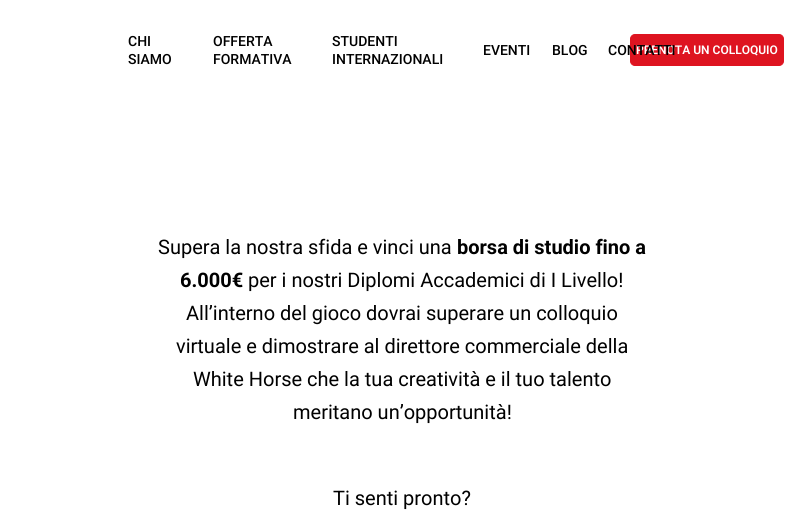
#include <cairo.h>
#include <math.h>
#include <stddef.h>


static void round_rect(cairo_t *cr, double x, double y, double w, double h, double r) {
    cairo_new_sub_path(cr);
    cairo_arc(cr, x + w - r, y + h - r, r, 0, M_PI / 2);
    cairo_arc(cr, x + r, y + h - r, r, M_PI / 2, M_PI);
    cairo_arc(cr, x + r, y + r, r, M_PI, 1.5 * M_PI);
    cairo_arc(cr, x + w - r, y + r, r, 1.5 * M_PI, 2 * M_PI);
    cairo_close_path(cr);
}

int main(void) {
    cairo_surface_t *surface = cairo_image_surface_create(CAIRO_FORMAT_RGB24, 804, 515);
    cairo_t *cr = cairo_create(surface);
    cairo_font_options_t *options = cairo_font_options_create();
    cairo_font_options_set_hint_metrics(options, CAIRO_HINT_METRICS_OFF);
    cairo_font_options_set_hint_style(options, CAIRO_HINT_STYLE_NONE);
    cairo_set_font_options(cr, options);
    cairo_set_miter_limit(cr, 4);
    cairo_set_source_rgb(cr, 1, 1, 1);
    cairo_paint(cr);
    cairo_select_font_face(cr, "Roboto Medium", CAIRO_FONT_SLANT_NORMAL, CAIRO_FONT_WEIGHT_NORMAL);
    cairo_set_font_size(cr, 14);
    cairo_set_source_rgb(cr, 0, 0, 0);
    cairo_move_to(cr, 128, 46);
    cairo_show_text(cr, "CHI");
    cairo_move_to(cr, 128, 64);
    cairo_show_text(cr, "SIAMO");
    cairo_move_to(cr, 213, 46);
    cairo_show_text(cr, "OFFERTA");
    cairo_move_to(cr, 213, 64);
    cairo_show_text(cr, "FORMATIVA");
    cairo_move_to(cr, 332, 46);
    cairo_show_text(cr, "STUDENTI");
    cairo_move_to(cr, 332, 64);
    cairo_show_text(cr, "INTERNAZIONALI");
    cairo_move_to(cr, 483, 55);
    cairo_show_text(cr, "EVENTI");
    cairo_move_to(cr, 552, 55);
    cairo_show_text(cr, "BLOG");
    cairo_set_source_rgb(cr, 0.871, 0.082, 0.125);
    round_rect(cr, 630.5, 34.5, 153, 31, 4.5);
    cairo_fill_preserve(cr);
    cairo_set_line_width(cr, 1);
    cairo_stroke(cr);
    cairo_select_font_face(cr, "Roboto SemiBold", CAIRO_FONT_SLANT_NORMAL, CAIRO_FONT_WEIGHT_NORMAL);
    cairo_set_font_size(cr, 12);
    cairo_set_source_rgb(cr, 1, 1, 1);
    cairo_move_to(cr, 636, 54);
    cairo_show_text(cr, "PRENOTA UN COLLOQUIO");
    cairo_select_font_face(cr, "Roboto Medium", CAIRO_FONT_SLANT_NORMAL, CAIRO_FONT_WEIGHT_NORMAL);
    cairo_set_font_size(cr, 14);
    cairo_set_source_rgb(cr, 0, 0, 0);
    cairo_move_to(cr, 608, 55);
    cairo_show_text(cr, "CONTATTI");
    cairo_select_font_face(cr, "Roboto", CAIRO_FONT_SLANT_NORMAL, CAIRO_FONT_WEIGHT_NORMAL);
    cairo_set_font_size(cr, 20);
    cairo_move_to(cr, 158, 254);
    cairo_show_text(cr, "Supera la nostra sfida e vinci una");
    cairo_select_font_face(cr, "Roboto", CAIRO_FONT_SLANT_NORMAL, CAIRO_FONT_WEIGHT_BOLD);
    cairo_move_to(cr, 457, 254);
    cairo_show_text(cr, "borsa di studio fino a");
    cairo_move_to(cr, 180, 287);
    cairo_show_text(cr, "6.000€");
    cairo_select_font_face(cr, "Roboto", CAIRO_FONT_SLANT_NORMAL, CAIRO_FONT_WEIGHT_NORMAL);
    cairo_move_to(cr, 248, 287);
    cairo_show_text(cr, "per i nostri Diplomi Accademici di I Livello!");
    cairo_move_to(cr, 186, 320);
    cairo_show_text(cr, "All’interno del gioco dovrai superare un colloquio");
    cairo_move_to(cr, 176, 353);
    cairo_show_text(cr, "virtuale e dimostrare al direttore commerciale della");
    cairo_move_to(cr, 193, 386);
    cairo_show_text(cr, "White Horse che la tua creatività e il tuo talento");
    cairo_move_to(cr, 293, 419);
    cairo_show_text(cr, "meritano un’opportunità!");
    cairo_move_to(cr, 333, 505);
    cairo_show_text(cr, "Ti senti pronto?");
    cairo_surface_write_to_png(surface, "page.png");
    cairo_font_options_destroy(options);
    cairo_destroy(cr);
    cairo_surface_destroy(surface);
    return 0;
}
